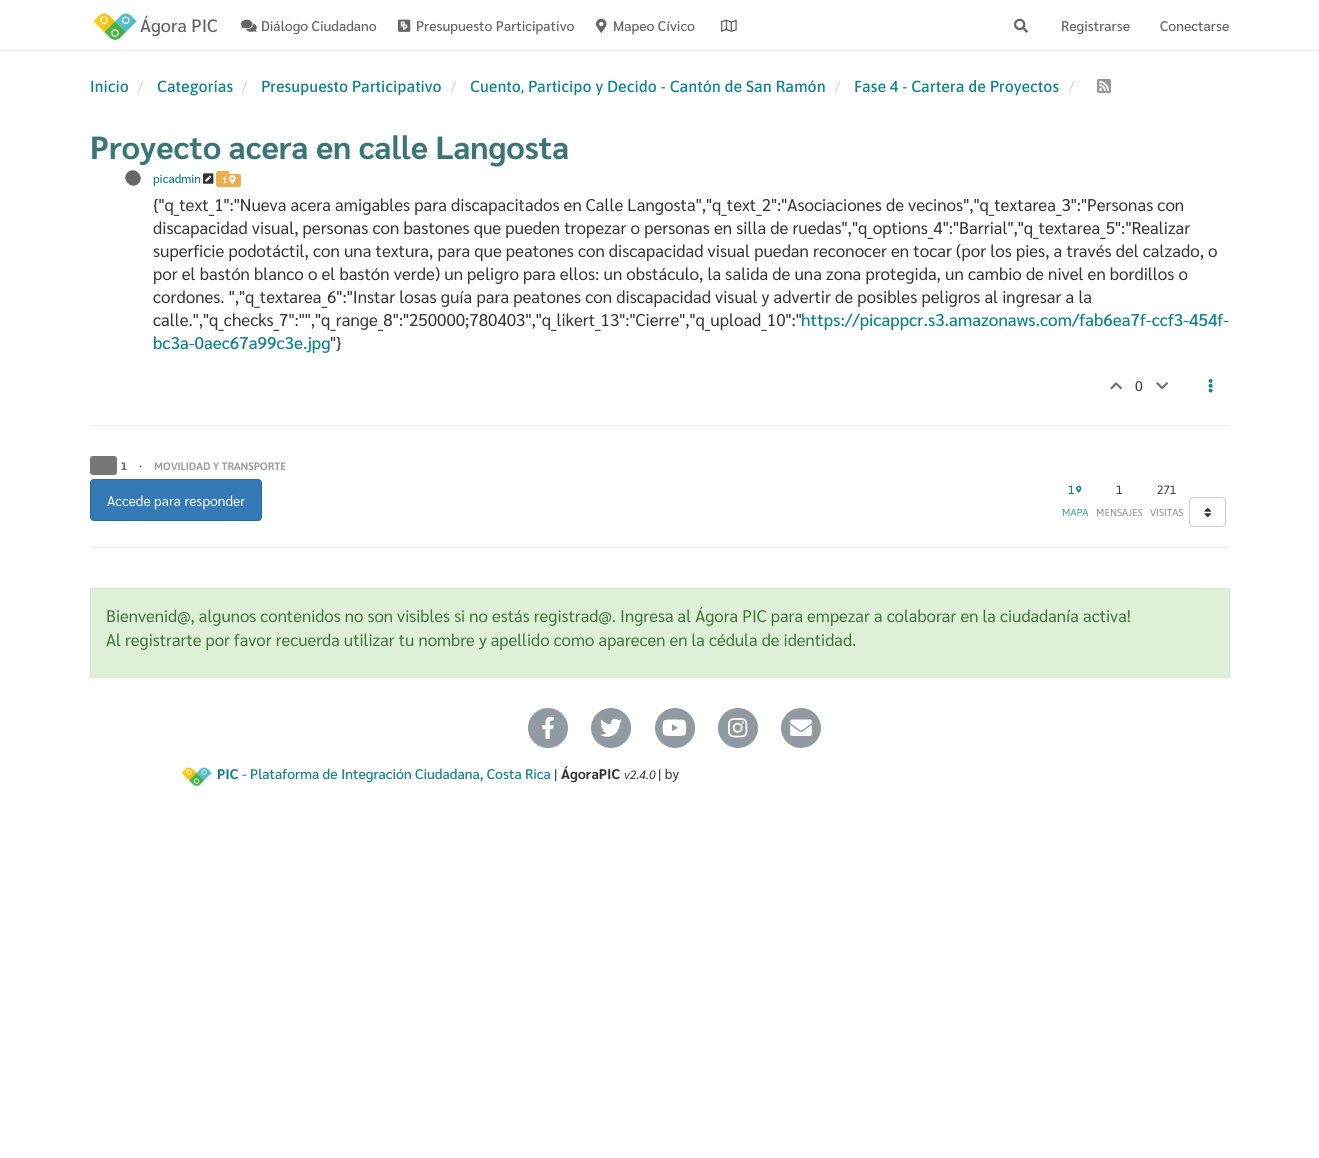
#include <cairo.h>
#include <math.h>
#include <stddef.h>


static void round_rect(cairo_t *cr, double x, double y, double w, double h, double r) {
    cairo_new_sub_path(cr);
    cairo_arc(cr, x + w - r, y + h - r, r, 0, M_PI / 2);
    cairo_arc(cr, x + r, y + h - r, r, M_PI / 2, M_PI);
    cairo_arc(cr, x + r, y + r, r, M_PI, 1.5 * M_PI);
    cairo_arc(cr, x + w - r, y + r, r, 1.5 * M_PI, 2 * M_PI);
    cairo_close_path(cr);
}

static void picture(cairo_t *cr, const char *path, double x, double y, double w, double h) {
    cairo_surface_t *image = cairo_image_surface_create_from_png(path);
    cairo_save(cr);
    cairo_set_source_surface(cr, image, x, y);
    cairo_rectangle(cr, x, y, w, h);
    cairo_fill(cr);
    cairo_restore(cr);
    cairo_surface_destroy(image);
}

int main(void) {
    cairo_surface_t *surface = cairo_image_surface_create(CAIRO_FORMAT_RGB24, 1319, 1158);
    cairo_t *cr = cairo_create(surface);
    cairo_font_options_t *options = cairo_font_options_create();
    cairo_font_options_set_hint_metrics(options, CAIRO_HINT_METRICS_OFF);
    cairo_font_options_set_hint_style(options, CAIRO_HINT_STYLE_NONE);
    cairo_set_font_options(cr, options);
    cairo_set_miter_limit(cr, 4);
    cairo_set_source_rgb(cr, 1, 1, 1);
    cairo_paint(cr);
    cairo_set_source_rgb(cr, 0.933, 0.933, 0.933);
    cairo_rectangle(cr, 0, 50, 1319, 1);
    cairo_fill(cr);
    picture(cr, "img1.png", 93, 13, 44, 27);
    cairo_select_font_face(cr, "Sarabun Medium", CAIRO_FONT_SLANT_NORMAL, CAIRO_FONT_WEIGHT_NORMAL);
    cairo_set_font_size(cr, 18);
    cairo_set_source_rgb(cr, 0.4, 0.4, 0.4);
    cairo_move_to(cr, 140, 32);
    cairo_show_text(cr, "Ágora PIC");
    picture(cr, "img2.png", 241, 19, 16, 13);
    cairo_set_font_size(cr, 14);
    cairo_move_to(cr, 261, 31);
    cairo_show_text(cr, "Diálogo Ciudadano");
    picture(cr, "img3.png", 398, 19, 13, 13);
    cairo_move_to(cr, 416, 31);
    cairo_show_text(cr, "Presupuesto Participativo");
    picture(cr, "img4.png", 596, 18, 11, 15);
    cairo_move_to(cr, 613, 31);
    cairo_show_text(cr, "Mapeo Cívico");
    picture(cr, "img5.png", 721, 19, 16, 13);
    picture(cr, "img6.png", 1014, 18, 14, 15);
    cairo_move_to(cr, 1061, 31);
    cairo_show_text(cr, "Registrarse");
    cairo_move_to(cr, 1160, 31);
    cairo_show_text(cr, "Conectarse");
    cairo_select_font_face(cr, "Asap Medium", CAIRO_FONT_SLANT_NORMAL, CAIRO_FONT_WEIGHT_NORMAL);
    cairo_set_font_size(cr, 16);
    cairo_set_source_rgb(cr, 0.071, 0.514, 0.549);
    cairo_move_to(cr, 90, 92);
    cairo_show_text(cr, "Inicio");
    cairo_select_font_face(cr, "Asap", CAIRO_FONT_SLANT_NORMAL, CAIRO_FONT_WEIGHT_NORMAL);
    cairo_set_source_rgb(cr, 0.8, 0.8, 0.8);
    cairo_move_to(cr, 137, 92);
    cairo_show_text(cr, "/");
    cairo_select_font_face(cr, "Asap Medium", CAIRO_FONT_SLANT_NORMAL, CAIRO_FONT_WEIGHT_NORMAL);
    cairo_set_source_rgb(cr, 0.071, 0.514, 0.549);
    cairo_move_to(cr, 157, 92);
    cairo_show_text(cr, "Categorías");
    cairo_select_font_face(cr, "Asap", CAIRO_FONT_SLANT_NORMAL, CAIRO_FONT_WEIGHT_NORMAL);
    cairo_set_source_rgb(cr, 0.8, 0.8, 0.8);
    cairo_move_to(cr, 241, 92);
    cairo_show_text(cr, "/");
    cairo_select_font_face(cr, "Asap Medium", CAIRO_FONT_SLANT_NORMAL, CAIRO_FONT_WEIGHT_NORMAL);
    cairo_set_source_rgb(cr, 0.071, 0.514, 0.549);
    cairo_move_to(cr, 261, 92);
    cairo_show_text(cr, "Presupuesto Participativo");
    cairo_select_font_face(cr, "Asap", CAIRO_FONT_SLANT_NORMAL, CAIRO_FONT_WEIGHT_NORMAL);
    cairo_set_source_rgb(cr, 0.8, 0.8, 0.8);
    cairo_move_to(cr, 450, 92);
    cairo_show_text(cr, "/");
    cairo_select_font_face(cr, "Asap Medium", CAIRO_FONT_SLANT_NORMAL, CAIRO_FONT_WEIGHT_NORMAL);
    cairo_set_source_rgb(cr, 0.071, 0.514, 0.549);
    cairo_move_to(cr, 470, 92);
    cairo_show_text(cr, "Cuento, Participo y Decido - Cantón de San Ramón");
    cairo_select_font_face(cr, "Asap", CAIRO_FONT_SLANT_NORMAL, CAIRO_FONT_WEIGHT_NORMAL);
    cairo_set_source_rgb(cr, 0.8, 0.8, 0.8);
    cairo_move_to(cr, 834, 92);
    cairo_show_text(cr, "/");
    cairo_select_font_face(cr, "Asap Medium", CAIRO_FONT_SLANT_NORMAL, CAIRO_FONT_WEIGHT_NORMAL);
    cairo_set_source_rgb(cr, 0.071, 0.514, 0.549);
    cairo_move_to(cr, 854, 92);
    cairo_show_text(cr, "Fase 4 - Cartera de Proyectos");
    cairo_select_font_face(cr, "Asap", CAIRO_FONT_SLANT_NORMAL, CAIRO_FONT_WEIGHT_NORMAL);
    cairo_set_source_rgb(cr, 0.8, 0.8, 0.8);
    cairo_move_to(cr, 1068, 92);
    cairo_show_text(cr, "/");
    picture(cr, "img7.png", 1097, 79, 14, 14);
    cairo_select_font_face(cr, "Sarabun", CAIRO_FONT_SLANT_NORMAL, CAIRO_FONT_WEIGHT_BOLD);
    cairo_set_font_size(cr, 32);
    cairo_set_source_rgb(cr, 0.224, 0.459, 0.475);
    cairo_move_to(cr, 90, 159);
    cairo_show_text(cr, "Proyecto acera en calle Langosta");
    cairo_set_source_rgb(cr, 0.4, 0.4, 0.4);
    cairo_new_path(cr);
    cairo_move_to(cr, 127.5, 172.5);
    cairo_curve_to(cr, 134.5, 165.5, 145.5, 176.5, 138.5, 183.5);
    cairo_curve_to(cr, 131.5, 190.5, 120.5, 179.5, 127.5, 172.5);
    cairo_close_path(cr);
    cairo_fill(cr);
    cairo_select_font_face(cr, "Sarabun Medium", CAIRO_FONT_SLANT_NORMAL, CAIRO_FONT_WEIGHT_NORMAL);
    cairo_set_font_size(cr, 12);
    cairo_set_source_rgb(cr, 0.071, 0.514, 0.549);
    cairo_move_to(cr, 153, 183);
    cairo_show_text(cr, "picadmin");
    picture(cr, "img8.png", 203, 173, 11, 11);
    cairo_set_source_rgb(cr, 0.941, 0.678, 0.306);
    cairo_new_path(cr);
    cairo_move_to(cr, 218, 171);
    cairo_line_to(cr, 229, 171);
    cairo_line_to(cr, 229, 187);
    cairo_line_to(cr, 218, 187);
    cairo_curve_to(cr, 217, 187, 216, 186, 216, 185);
    cairo_line_to(cr, 216, 173);
    cairo_curve_to(cr, 216, 172, 217, 171, 218, 171);
    cairo_close_path(cr);
    cairo_fill(cr);
    cairo_new_path(cr);
    cairo_move_to(cr, 229, 174);
    cairo_line_to(cr, 239, 174);
    cairo_curve_to(cr, 240, 174, 241, 175, 241, 176);
    cairo_line_to(cr, 241, 185);
    cairo_curve_to(cr, 241, 186, 240, 187, 239, 187);
    cairo_line_to(cr, 229, 187);
    cairo_close_path(cr);
    cairo_fill(cr);
    cairo_select_font_face(cr, "Sarabun", CAIRO_FONT_SLANT_NORMAL, CAIRO_FONT_WEIGHT_BOLD);
    cairo_set_font_size(cr, 9);
    cairo_set_source_rgb(cr, 1, 1, 1);
    cairo_move_to(cr, 222, 183);
    cairo_show_text(cr, "1");
    picture(cr, "img9.png", 229, 175, 7, 10);
    cairo_select_font_face(cr, "Sarabun", CAIRO_FONT_SLANT_NORMAL, CAIRO_FONT_WEIGHT_NORMAL);
    cairo_set_font_size(cr, 17);
    cairo_set_source_rgb(cr, 0.2, 0.2, 0.2);
    cairo_move_to(cr, 153, 211);
    cairo_show_text(cr, "{\"q_text_1\":\"Nueva acera amigables para discapacitados en Calle Langosta\",\"q_text_2\":\"Asociaciones de vecinos\",\"q_textarea_3\":\"Personas con");
    cairo_move_to(cr, 153, 234);
    cairo_show_text(cr, "discapacidad visual, personas con bastones que pueden tropezar o personas en silla de ruedas\",\"q_options_4\":\"Barrial\",\"q_textarea_5\":\"Realizar");
    cairo_move_to(cr, 153, 257);
    cairo_show_text(cr, "superficie podotáctil, con una textura, para que peatones con discapacidad visual puedan reconocer en tocar (por los pies, a través del calzado, o");
    cairo_move_to(cr, 153, 280);
    cairo_show_text(cr, "por el bastón blanco o el bastón verde) un peligro para ellos: un obstáculo, la salida de una zona protegida, un cambio de nivel en bordillos o");
    cairo_move_to(cr, 153, 303);
    cairo_show_text(cr, "cordones. \",\"q_textarea_6\":\"Instar losas guía para peatones con discapacidad visual y advertir de posibles peligros al ingresar a la");
    cairo_move_to(cr, 153, 326);
    cairo_show_text(cr, "calle.\",\"q_checks_7\":\"\",\"q_range_8\":\"250000;780403\",\"q_likert_13\":\"Cierre\",\"q_upload_10\":\"");
    cairo_select_font_face(cr, "Sarabun Medium", CAIRO_FONT_SLANT_NORMAL, CAIRO_FONT_WEIGHT_NORMAL);
    cairo_set_source_rgb(cr, 0.071, 0.514, 0.549);
    cairo_move_to(cr, 801, 326);
    cairo_show_text(cr, "https://picappcr.s3.amazonaws.com/fab6ea7f-ccf3-454f-");
    cairo_move_to(cr, 153, 349);
    cairo_show_text(cr, "bc3a-0aec67a99c3e.jpg");
    cairo_select_font_face(cr, "Sarabun", CAIRO_FONT_SLANT_NORMAL, CAIRO_FONT_WEIGHT_NORMAL);
    cairo_set_source_rgb(cr, 0.2, 0.2, 0.2);
    cairo_move_to(cr, 330, 349);
    cairo_show_text(cr, "\"}");
    picture(cr, "img10.png", 1110, 382, 12, 8);
    cairo_set_font_size(cr, 14);
    cairo_move_to(cr, 1135, 391);
    cairo_show_text(cr, "0");
    picture(cr, "img11.png", 1156, 382, 12, 8);
    picture(cr, "img12.png", 1208, 379, 5, 14);
    cairo_set_source_rgb(cr, 0.933, 0.933, 0.933);
    cairo_rectangle(cr, 90, 425, 1140, 1);
    cairo_fill(cr);
    cairo_set_source_rgb(cr, 0.467, 0.467, 0.467);
    round_rect(cr, 90, 456, 27, 19, 3);
    cairo_fill(cr);
    cairo_select_font_face(cr, "Asap", CAIRO_FONT_SLANT_NORMAL, CAIRO_FONT_WEIGHT_BOLD);
    cairo_set_font_size(cr, 11);
    cairo_set_source_rgb(cr, 0.4, 0.4, 0.4);
    cairo_move_to(cr, 121, 470);
    cairo_show_text(cr, "1");
    cairo_select_font_face(cr, "Asap", CAIRO_FONT_SLANT_NORMAL, CAIRO_FONT_WEIGHT_NORMAL);
    cairo_set_font_size(cr, 10);
    cairo_set_source_rgb(cr, 0.2, 0.2, 0.2);
    cairo_move_to(cr, 139, 470);
    cairo_show_text(cr, "•");
    cairo_select_font_face(cr, "Asap SemiBold", CAIRO_FONT_SLANT_NORMAL, CAIRO_FONT_WEIGHT_NORMAL);
    cairo_set_font_size(cr, 10.75);
    cairo_set_source_rgb(cr, 0.6, 0.6, 0.6);
    cairo_move_to(cr, 154, 470);
    cairo_show_text(cr, "MOVILIDAD Y TRANSPORTE");
    cairo_set_source_rgb(cr, 0.2, 0.478, 0.718);
    round_rect(cr, 90.5, 479.5, 171, 41, 3.5);
    cairo_fill_preserve(cr);
    cairo_set_source_rgb(cr, 0.18, 0.427, 0.643);
    cairo_set_line_width(cr, 1);
    cairo_stroke(cr);
    cairo_select_font_face(cr, "Sarabun", CAIRO_FONT_SLANT_NORMAL, CAIRO_FONT_WEIGHT_NORMAL);
    cairo_set_font_size(cr, 14);
    cairo_set_source_rgb(cr, 1, 1, 1);
    cairo_move_to(cr, 107, 506);
    cairo_show_text(cr, "Accede para responder");
    cairo_select_font_face(cr, "Asap Medium", CAIRO_FONT_SLANT_NORMAL, CAIRO_FONT_WEIGHT_NORMAL);
    cairo_set_font_size(cr, 12);
    cairo_set_source_rgb(cr, 0.071, 0.514, 0.549);
    cairo_move_to(cr, 1068, 494);
    cairo_show_text(cr, "1");
    picture(cr, "img13.png", 1076, 485, 6, 8);
    cairo_select_font_face(cr, "Asap Light", CAIRO_FONT_SLANT_NORMAL, CAIRO_FONT_WEIGHT_NORMAL);
    cairo_set_font_size(cr, 10);
    cairo_move_to(cr, 1062, 516);
    cairo_show_text(cr, "MAPA");
    cairo_select_font_face(cr, "Asap", CAIRO_FONT_SLANT_NORMAL, CAIRO_FONT_WEIGHT_NORMAL);
    cairo_set_font_size(cr, 12);
    cairo_set_source_rgb(cr, 0.2, 0.2, 0.2);
    cairo_move_to(cr, 1116, 494);
    cairo_show_text(cr, "1");
    cairo_select_font_face(cr, "Asap Light", CAIRO_FONT_SLANT_NORMAL, CAIRO_FONT_WEIGHT_NORMAL);
    cairo_set_font_size(cr, 10);
    cairo_set_source_rgb(cr, 0.424, 0.459, 0.49);
    cairo_move_to(cr, 1096, 516);
    cairo_show_text(cr, "MENSAJES");
    cairo_select_font_face(cr, "Asap", CAIRO_FONT_SLANT_NORMAL, CAIRO_FONT_WEIGHT_NORMAL);
    cairo_set_font_size(cr, 12);
    cairo_set_source_rgb(cr, 0.2, 0.2, 0.2);
    cairo_move_to(cr, 1157, 494);
    cairo_show_text(cr, "271");
    cairo_select_font_face(cr, "Asap Light", CAIRO_FONT_SLANT_NORMAL, CAIRO_FONT_WEIGHT_NORMAL);
    cairo_set_font_size(cr, 10);
    cairo_set_source_rgb(cr, 0.424, 0.459, 0.49);
    cairo_move_to(cr, 1150, 516);
    cairo_show_text(cr, "VISITAS");
    round_rect(cr, 1189.5, 497.5, 36, 29, 3.5);
    cairo_set_source_rgb(cr, 0.8, 0.8, 0.8);
    cairo_stroke(cr);
    picture(cr, "img14.png", 1204, 507, 8, 11);
    cairo_set_source_rgb(cr, 0.933, 0.933, 0.933);
    cairo_rectangle(cr, 90, 547, 1140, 1);
    cairo_fill(cr);
    cairo_set_source_rgb(cr, 0.875, 0.941, 0.847);
    cairo_rectangle(cr, 90.5, 588.5, 1139, 89);
    cairo_fill_preserve(cr);
    cairo_set_source_rgb(cr, 0.839, 0.914, 0.776);
    cairo_stroke(cr);
    cairo_select_font_face(cr, "Sarabun", CAIRO_FONT_SLANT_NORMAL, CAIRO_FONT_WEIGHT_NORMAL);
    cairo_set_font_size(cr, 16.8);
    cairo_set_source_rgb(cr, 0.235, 0.463, 0.239);
    cairo_move_to(cr, 106, 622);
    cairo_show_text(cr, "Bienvenid@, algunos contenidos no son visibles si no estás registrad@. Ingresa al Ágora PIC para empezar a colaborar en la ciudadanía activa!");
    cairo_move_to(cr, 106, 646);
    cairo_show_text(cr, "Al registrarte por favor recuerda utilizar tu nombre y apellido como aparecen en la cédula de identidad.");
    cairo_set_source_rgb(cr, 0.565, 0.604, 0.627);
    cairo_new_path(cr);
    cairo_arc(cr, 548, 728, 20, 0, 2 * M_PI);
    cairo_fill(cr);
    picture(cr, "img15.png", 542, 716, 12, 23);
    cairo_arc(cr, 611, 728, 20, 0, 2 * M_PI);
    cairo_fill(cr);
    picture(cr, "img16.png", 600, 718, 22, 19);
    cairo_arc(cr, 675, 728, 20, 0, 2 * M_PI);
    cairo_fill(cr);
    picture(cr, "img17.png", 662, 719, 25, 17);
    cairo_arc(cr, 738, 728, 20, 0, 2 * M_PI);
    cairo_fill(cr);
    picture(cr, "img18.png", 728, 718, 20, 20);
    cairo_arc(cr, 801, 728, 20, 0, 2 * M_PI);
    cairo_fill(cr);
    picture(cr, "img19.png", 790, 719, 22, 17);
    picture(cr, "img20.png", 181, 767, 31, 19);
    cairo_select_font_face(cr, "Sarabun", CAIRO_FONT_SLANT_NORMAL, CAIRO_FONT_WEIGHT_BOLD);
    cairo_set_font_size(cr, 14);
    cairo_set_source_rgb(cr, 0.071, 0.514, 0.549);
    cairo_move_to(cr, 217, 779);
    cairo_show_text(cr, "PIC");
    cairo_select_font_face(cr, "Sarabun Medium", CAIRO_FONT_SLANT_NORMAL, CAIRO_FONT_WEIGHT_NORMAL);
    cairo_move_to(cr, 242, 779);
    cairo_show_text(cr, "- Plataforma de Integración Ciudadana, Costa Rica");
    cairo_select_font_face(cr, "Sarabun", CAIRO_FONT_SLANT_NORMAL, CAIRO_FONT_WEIGHT_NORMAL);
    cairo_set_source_rgb(cr, 0.2, 0.2, 0.2);
    cairo_move_to(cr, 554, 779);
    cairo_show_text(cr, "|");
    cairo_select_font_face(cr, "Sarabun", CAIRO_FONT_SLANT_NORMAL, CAIRO_FONT_WEIGHT_BOLD);
    cairo_move_to(cr, 561, 779);
    cairo_show_text(cr, "ÁgoraPIC");
    cairo_select_font_face(cr, "Sarabun", CAIRO_FONT_SLANT_ITALIC, CAIRO_FONT_WEIGHT_NORMAL);
    cairo_set_font_size(cr, 12);
    cairo_move_to(cr, 624, 779);
    cairo_show_text(cr, "v2.4.0");
    cairo_select_font_face(cr, "Sarabun", CAIRO_FONT_SLANT_NORMAL, CAIRO_FONT_WEIGHT_NORMAL);
    cairo_set_font_size(cr, 14);
    cairo_move_to(cr, 658, 779);
    cairo_show_text(cr, "| by");
    cairo_surface_write_to_png(surface, "page.png");
    cairo_font_options_destroy(options);
    cairo_destroy(cr);
    cairo_surface_destroy(surface);
    return 0;
}
